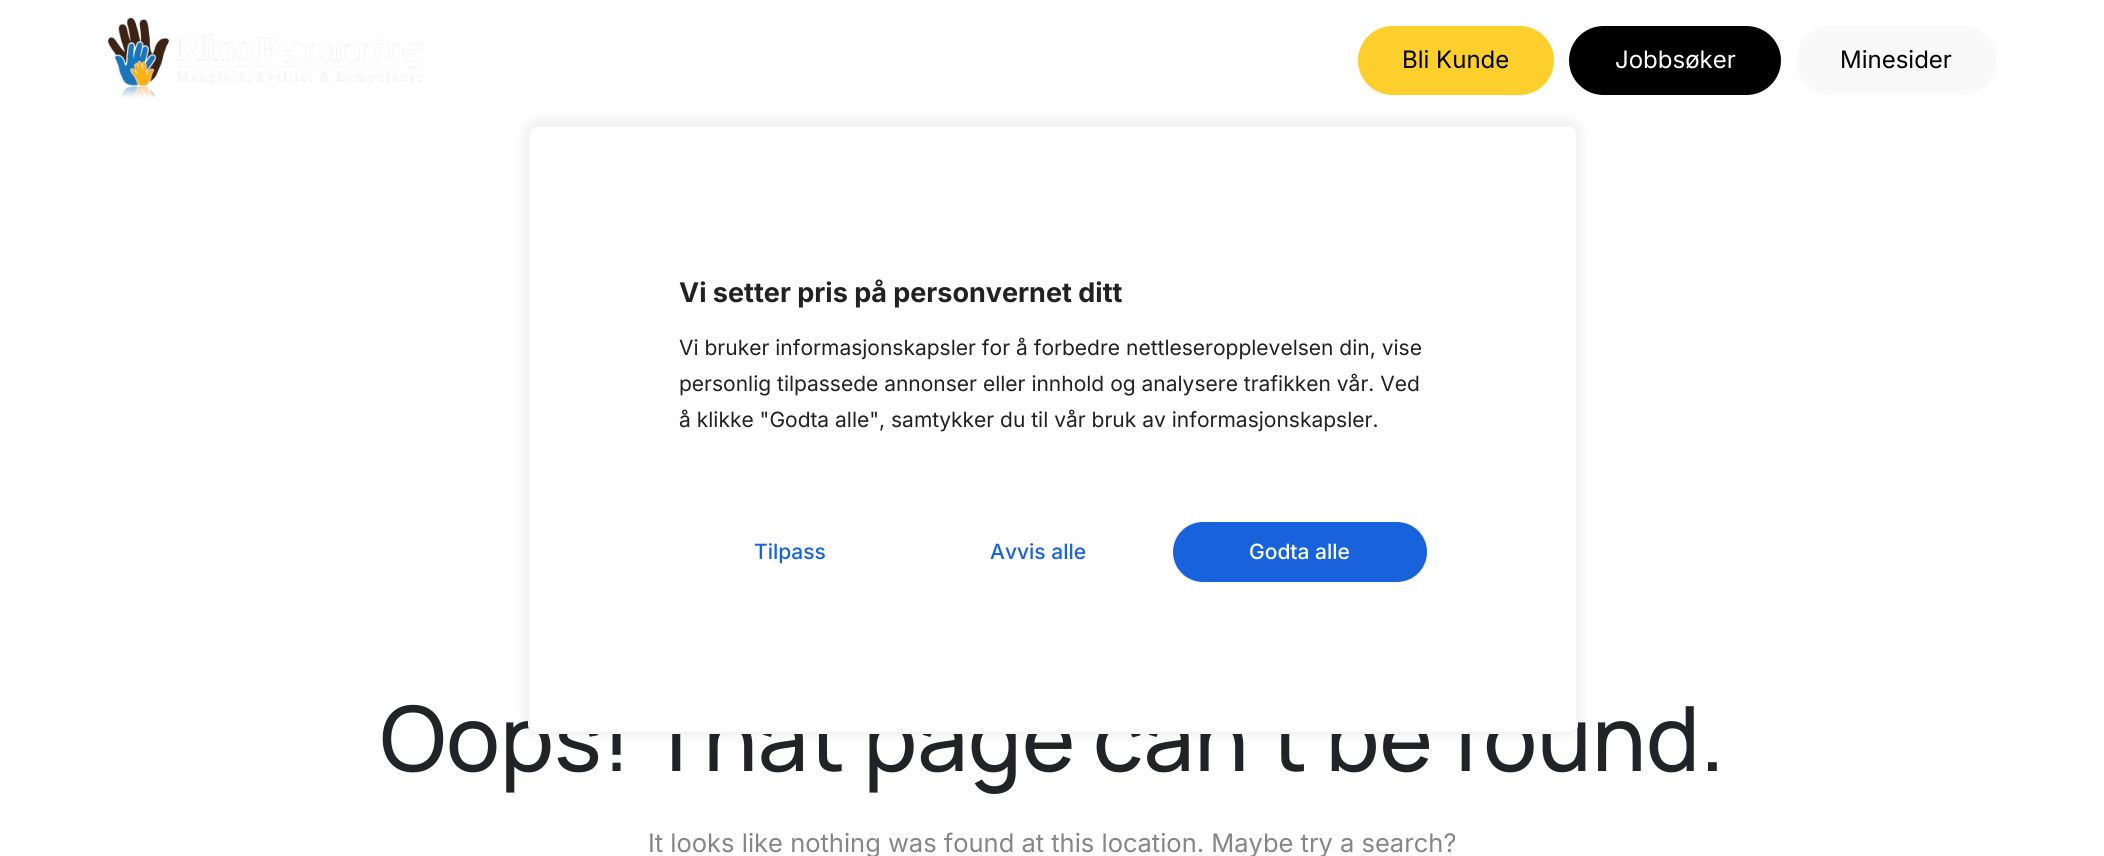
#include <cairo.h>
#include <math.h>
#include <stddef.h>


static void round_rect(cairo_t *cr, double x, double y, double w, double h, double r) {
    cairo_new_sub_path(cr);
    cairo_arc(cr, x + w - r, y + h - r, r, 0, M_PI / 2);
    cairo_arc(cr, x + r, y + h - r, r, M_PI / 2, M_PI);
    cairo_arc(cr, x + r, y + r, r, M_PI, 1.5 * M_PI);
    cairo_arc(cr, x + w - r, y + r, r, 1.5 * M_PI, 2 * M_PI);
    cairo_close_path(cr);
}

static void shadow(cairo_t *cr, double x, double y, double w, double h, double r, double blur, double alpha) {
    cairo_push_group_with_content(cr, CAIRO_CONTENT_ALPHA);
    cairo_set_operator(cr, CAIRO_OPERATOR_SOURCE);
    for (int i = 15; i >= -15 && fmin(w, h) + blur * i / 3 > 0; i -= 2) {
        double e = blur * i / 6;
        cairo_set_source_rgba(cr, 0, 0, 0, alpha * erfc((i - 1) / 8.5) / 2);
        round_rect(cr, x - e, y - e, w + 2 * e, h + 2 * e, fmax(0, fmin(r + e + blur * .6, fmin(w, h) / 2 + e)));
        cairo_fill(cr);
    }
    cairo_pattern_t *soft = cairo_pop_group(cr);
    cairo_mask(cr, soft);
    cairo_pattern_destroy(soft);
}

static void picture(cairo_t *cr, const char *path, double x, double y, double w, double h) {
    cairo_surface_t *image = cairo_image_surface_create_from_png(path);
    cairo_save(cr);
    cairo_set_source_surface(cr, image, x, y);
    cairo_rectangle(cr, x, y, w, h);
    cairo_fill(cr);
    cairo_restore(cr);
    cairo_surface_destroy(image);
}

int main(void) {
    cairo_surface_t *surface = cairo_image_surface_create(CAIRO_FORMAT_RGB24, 2104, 856);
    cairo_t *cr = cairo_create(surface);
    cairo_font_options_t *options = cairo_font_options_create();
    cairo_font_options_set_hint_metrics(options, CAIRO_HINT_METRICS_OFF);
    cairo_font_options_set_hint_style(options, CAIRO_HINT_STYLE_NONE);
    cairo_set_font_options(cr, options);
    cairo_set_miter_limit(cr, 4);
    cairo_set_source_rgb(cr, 1, 1, 1);
    cairo_paint(cr);
    picture(cr, "img1.png", 108, 18, 315, 80);
    cairo_set_source_rgb(cr, 0.988, 0.812, 0.173);
    round_rect(cr, 1358, 26, 196, 69, 34.5);
    cairo_fill(cr);
    cairo_select_font_face(cr, "Inter", CAIRO_FONT_SLANT_NORMAL, CAIRO_FONT_WEIGHT_NORMAL);
    cairo_set_font_size(cr, 24);
    cairo_set_source_rgb(cr, 0, 0, 0);
    cairo_move_to(cr, 1402, 68);
    cairo_show_text(cr, "Bli Kunde");
    round_rect(cr, 1569, 26, 212, 69, 34.5);
    cairo_fill(cr);
    cairo_set_source_rgb(cr, 1, 1, 1);
    cairo_move_to(cr, 1615, 68);
    cairo_show_text(cr, "Jobbsøker");
    cairo_set_source_rgb(cr, 0.973, 0.973, 0.973);
    round_rect(cr, 1796, 26, 201, 69, 34.5);
    cairo_fill(cr);
    cairo_set_source_rgb(cr, 0, 0, 0);
    cairo_move_to(cr, 1840, 68);
    cairo_show_text(cr, "Minesider");
    cairo_set_source_rgb(cr, 0.675, 0.671, 0.671);
    shadow(cr, 528, 123, 1050, 609, 9, 7.5, 0.3);
    cairo_select_font_face(cr, "Manrope Medium", CAIRO_FONT_SLANT_NORMAL, CAIRO_FONT_WEIGHT_NORMAL);
    cairo_set_font_size(cr, 90);
    cairo_set_source_rgb(cr, 0.129, 0.137, 0.153);
    cairo_move_to(cr, 380, 771);
    cairo_show_text(cr, "Oops! That page can’t be found.");
    cairo_set_source_rgb(cr, 1, 1, 1);
    round_rect(cr, 529, 126, 1048, 607, 8);
    cairo_fill_preserve(cr);
    cairo_set_source_rgb(cr, 0.957, 0.957, 0.957);
    cairo_stroke(cr);
    cairo_select_font_face(cr, "Inter", CAIRO_FONT_SLANT_NORMAL, CAIRO_FONT_WEIGHT_BOLD);
    cairo_set_font_size(cr, 27);
    cairo_set_source_rgb(cr, 0.129, 0.129, 0.129);
    cairo_move_to(cr, 679, 302);
    cairo_show_text(cr, "Vi setter pris på personvernet ditt");
    cairo_select_font_face(cr, "Inter", CAIRO_FONT_SLANT_NORMAL, CAIRO_FONT_WEIGHT_NORMAL);
    cairo_set_font_size(cr, 21);
    cairo_move_to(cr, 679, 355);
    cairo_show_text(cr, "Vi bruker informasjonskapsler for å forbedre nettleseropplevelsen din, vise");
    cairo_move_to(cr, 679, 391);
    cairo_show_text(cr, "personlig tilpassede annonser eller innhold og analysere trafikken vår. Ved");
    cairo_move_to(cr, 679, 427);
    cairo_show_text(cr, "å klikke \"Godta alle\", samtykker du til vår bruk av informasjonskapsler.");
    cairo_select_font_face(cr, "Inter Medium", CAIRO_FONT_SLANT_NORMAL, CAIRO_FONT_WEIGHT_NORMAL);
    cairo_set_source_rgb(cr, 0.094, 0.388, 0.863);
    cairo_move_to(cr, 754, 559);
    cairo_show_text(cr, "Tilpass");
    cairo_move_to(cr, 990, 559);
    cairo_show_text(cr, "Avvis alle");
    round_rect(cr, 1173, 522, 254, 60, 30);
    cairo_fill(cr);
    cairo_set_source_rgb(cr, 1, 1, 1);
    cairo_move_to(cr, 1249, 559);
    cairo_show_text(cr, "Godta alle");
    cairo_select_font_face(cr, "Inter", CAIRO_FONT_SLANT_NORMAL, CAIRO_FONT_WEIGHT_NORMAL);
    cairo_set_font_size(cr, 25.5);
    cairo_set_source_rgb(cr, 0.525, 0.525, 0.525);
    cairo_move_to(cr, 648, 852);
    cairo_show_text(cr, "It looks like nothing was found at this location. Maybe try a search?");
    cairo_surface_write_to_png(surface, "page.png");
    cairo_font_options_destroy(options);
    cairo_destroy(cr);
    cairo_surface_destroy(surface);
    return 0;
}
